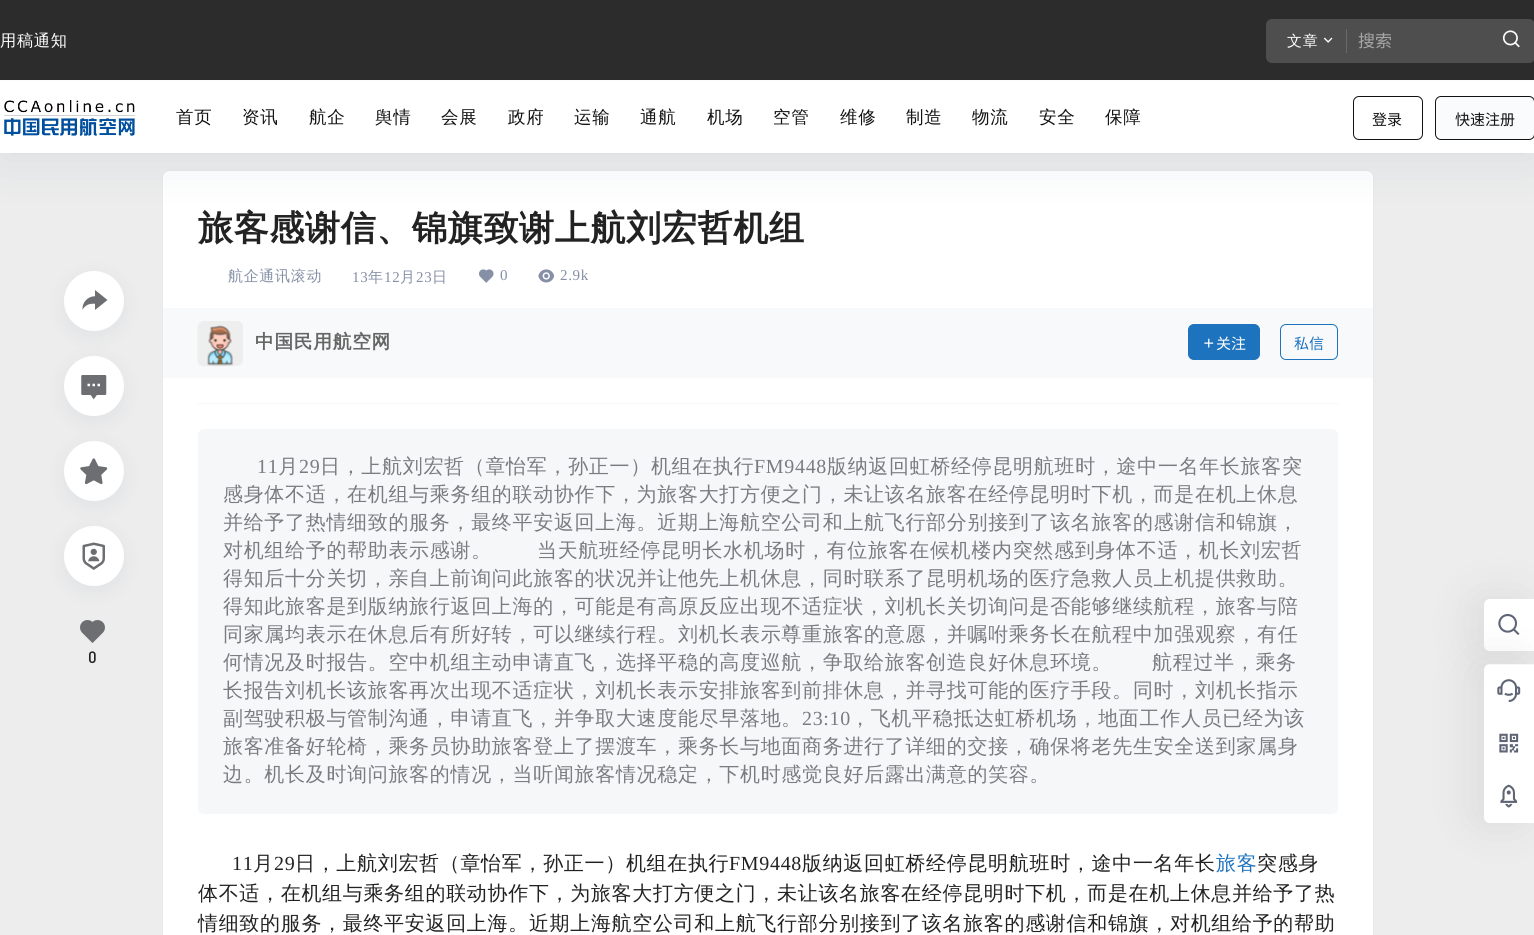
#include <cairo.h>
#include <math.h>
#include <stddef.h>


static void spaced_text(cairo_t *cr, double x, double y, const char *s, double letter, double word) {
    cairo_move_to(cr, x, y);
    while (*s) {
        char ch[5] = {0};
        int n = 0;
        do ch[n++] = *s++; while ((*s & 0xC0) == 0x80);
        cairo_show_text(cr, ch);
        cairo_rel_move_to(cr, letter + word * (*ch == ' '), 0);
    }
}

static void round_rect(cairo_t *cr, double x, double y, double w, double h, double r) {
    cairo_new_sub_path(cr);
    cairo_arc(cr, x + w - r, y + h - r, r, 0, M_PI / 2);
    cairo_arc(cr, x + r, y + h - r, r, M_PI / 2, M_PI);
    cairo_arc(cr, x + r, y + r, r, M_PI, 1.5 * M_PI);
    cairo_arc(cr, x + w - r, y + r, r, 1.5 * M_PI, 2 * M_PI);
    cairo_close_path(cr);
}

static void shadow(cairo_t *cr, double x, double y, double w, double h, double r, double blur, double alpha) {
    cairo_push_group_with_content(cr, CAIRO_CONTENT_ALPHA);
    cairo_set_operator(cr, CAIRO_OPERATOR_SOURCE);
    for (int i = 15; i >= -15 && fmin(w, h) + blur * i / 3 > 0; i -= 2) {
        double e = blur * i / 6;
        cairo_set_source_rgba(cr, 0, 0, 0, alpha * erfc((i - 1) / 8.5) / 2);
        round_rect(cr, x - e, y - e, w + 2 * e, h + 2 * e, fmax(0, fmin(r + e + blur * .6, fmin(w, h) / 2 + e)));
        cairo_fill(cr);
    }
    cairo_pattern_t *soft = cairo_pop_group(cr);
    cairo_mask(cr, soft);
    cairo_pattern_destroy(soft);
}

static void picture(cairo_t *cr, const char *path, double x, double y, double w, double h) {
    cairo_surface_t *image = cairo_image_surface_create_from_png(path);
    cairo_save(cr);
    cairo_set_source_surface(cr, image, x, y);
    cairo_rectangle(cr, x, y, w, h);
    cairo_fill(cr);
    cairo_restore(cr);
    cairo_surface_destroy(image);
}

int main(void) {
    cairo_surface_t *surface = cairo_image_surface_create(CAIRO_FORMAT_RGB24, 1534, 935);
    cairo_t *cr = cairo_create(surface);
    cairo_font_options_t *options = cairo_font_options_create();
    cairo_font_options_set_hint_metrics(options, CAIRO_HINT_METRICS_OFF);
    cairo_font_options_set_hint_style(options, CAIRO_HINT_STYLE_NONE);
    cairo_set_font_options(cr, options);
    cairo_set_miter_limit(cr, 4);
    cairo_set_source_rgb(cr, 0.929, 0.929, 0.929);
    cairo_paint(cr);
    cairo_set_source_rgb(cr, 0.384, 0.486, 0.6);
    shadow(cr, 163, 171, 1210, 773, 6, 1, 0.1);
    cairo_set_source_rgb(cr, 1, 1, 1);
    round_rect(cr, 163, 171, 1210, 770, 6);
    cairo_fill(cr);
    cairo_set_source_rgb(cr, 0.067, 0.227, 0.365);
    shadow(cr, 0, 6, 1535, 153, 0, 25, 0.1);
    cairo_set_source_rgb(cr, 0.173, 0.173, 0.173);
    cairo_rectangle(cr, 0, 0, 1534, 80);
    cairo_fill(cr);
    cairo_select_font_face(cr, "WenQuanYi Zen Hei Medium", CAIRO_FONT_SLANT_NORMAL, CAIRO_FONT_WEIGHT_NORMAL);
    cairo_set_font_size(cr, 16.25);
    cairo_set_source_rgb(cr, 1, 1, 1);
    spaced_text(cr, 0, 46, "用稿通知", 0.68, 0);
    cairo_set_source_rgb(cr, 0.306, 0.306, 0.306);
    round_rect(cr, 1266, 19, 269, 44, 6);
    cairo_fill(cr);
    cairo_set_source_rgb(cr, 0.416, 0.416, 0.416);
    cairo_rectangle(cr, 1346, 29, 1, 24);
    cairo_fill(cr);
    cairo_set_font_size(cr, 15);
    cairo_set_source_rgb(cr, 1, 1, 1);
    spaced_text(cr, 1287, 46, "文章", 0.68, 0);
    picture(cr, "img1.png", 1323, 37, 10, 6);
    cairo_select_font_face(cr, "Noto Sans CJK SC", CAIRO_FONT_SLANT_NORMAL, CAIRO_FONT_WEIGHT_NORMAL);
    cairo_set_font_size(cr, 17);
    cairo_set_source_rgb(cr, 0.655, 0.655, 0.655);
    cairo_move_to(cr, 1358, 47);
    cairo_show_text(cr, "搜索");
    picture(cr, "img2.png", 1502, 30, 18, 18);
    cairo_set_source_rgb(cr, 1, 1, 1);
    cairo_rectangle(cr, 0, 81, 1534, 72);
    cairo_fill(cr);
    cairo_set_source_rgb(cr, 0.988, 0.988, 0.988);
    cairo_rectangle(cr, 0, 80, 1534, 1);
    cairo_fill(cr);
    picture(cr, "img3.png", 4, 100, 131, 36);
    cairo_select_font_face(cr, "WenQuanYi Zen Hei Medium", CAIRO_FONT_SLANT_NORMAL, CAIRO_FONT_WEIGHT_NORMAL);
    cairo_set_font_size(cr, 17.5);
    cairo_set_source_rgb(cr, 0.071, 0.071, 0.071);
    spaced_text(cr, 176, 123, "首页", 0.68, 0);
    spaced_text(cr, 242, 123, "资讯", 0.68, 0);
    spaced_text(cr, 309, 123, "航企", 0.68, 0);
    spaced_text(cr, 375, 123, "舆情", 0.68, 0);
    spaced_text(cr, 441, 123, "会展", 0.68, 0);
    spaced_text(cr, 508, 123, "政府", 0.68, 0);
    spaced_text(cr, 574, 123, "运输", 0.68, 0);
    spaced_text(cr, 640, 123, "通航", 0.68, 0);
    spaced_text(cr, 707, 123, "机场", 0.68, 0);
    spaced_text(cr, 773, 123, "空管", 0.68, 0);
    spaced_text(cr, 840, 123, "维修", 0.68, 0);
    spaced_text(cr, 906, 123, "制造", 0.68, 0);
    spaced_text(cr, 972, 123, "物流", 0.68, 0);
    spaced_text(cr, 1039, 123, "安全", 0.68, 0);
    spaced_text(cr, 1105, 123, "保障", 0.68, 0);
    round_rect(cr, 1353.5, 96.5, 69, 43, 5.5);
    cairo_set_line_width(cr, 1);
    cairo_stroke(cr);
    cairo_select_font_face(cr, "Noto Sans CJK SC", CAIRO_FONT_SLANT_NORMAL, CAIRO_FONT_WEIGHT_NORMAL);
    cairo_set_font_size(cr, 15);
    cairo_move_to(cr, 1372, 125);
    cairo_show_text(cr, "登录");
    cairo_set_source_rgb(cr, 0.973, 0.984, 0.992);
    round_rect(cr, 1435.5, 96.5, 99, 43, 5.5);
    cairo_fill_preserve(cr);
    cairo_set_source_rgb(cr, 0.071, 0.071, 0.071);
    cairo_stroke(cr);
    cairo_move_to(cr, 1455, 125);
    cairo_show_text(cr, "快速注册");
    cairo_set_source_rgb(cr, 0.961, 0.965, 0.969);
    cairo_rectangle(cr, 198, 403, 1140, 1);
    cairo_fill(cr);
    cairo_select_font_face(cr, "WenQuanYi Zen Hei", CAIRO_FONT_SLANT_NORMAL, CAIRO_FONT_WEIGHT_BOLD);
    cairo_set_font_size(cr, 35);
    cairo_set_source_rgb(cr, 0.133, 0.133, 0.133);
    spaced_text(cr, 198, 240, "旅客感谢信、锦旗致谢上航刘宏哲机组", 0.68, 0);
    cairo_select_font_face(cr, "WenQuanYi Zen Hei Medium", CAIRO_FONT_SLANT_NORMAL, CAIRO_FONT_WEIGHT_NORMAL);
    cairo_set_font_size(cr, 15);
    cairo_set_source_rgb(cr, 0.522, 0.565, 0.651);
    spaced_text(cr, 228, 281, "航企通讯滚动", 0.68, 0);
    cairo_select_font_face(cr, "Liberation Serif", CAIRO_FONT_SLANT_NORMAL, CAIRO_FONT_WEIGHT_NORMAL);
    spaced_text(cr, 352, 282, "13", 0.68, 0);
    cairo_select_font_face(cr, "WenQuanYi Zen Hei Medium", CAIRO_FONT_SLANT_NORMAL, CAIRO_FONT_WEIGHT_NORMAL);
    spaced_text(cr, 368, 282, "年", 0.68, 0);
    cairo_select_font_face(cr, "Liberation Serif", CAIRO_FONT_SLANT_NORMAL, CAIRO_FONT_WEIGHT_NORMAL);
    spaced_text(cr, 384, 282, "12", 0.68, 0);
    cairo_select_font_face(cr, "WenQuanYi Zen Hei Medium", CAIRO_FONT_SLANT_NORMAL, CAIRO_FONT_WEIGHT_NORMAL);
    spaced_text(cr, 400, 282, "月", 0.68, 0);
    cairo_select_font_face(cr, "Liberation Serif", CAIRO_FONT_SLANT_NORMAL, CAIRO_FONT_WEIGHT_NORMAL);
    spaced_text(cr, 416, 282, "23", 0.68, 0);
    cairo_select_font_face(cr, "WenQuanYi Zen Hei Medium", CAIRO_FONT_SLANT_NORMAL, CAIRO_FONT_WEIGHT_NORMAL);
    spaced_text(cr, 432, 282, "日", 0.68, 0);
    picture(cr, "img4.png", 479, 269, 15, 14);
    cairo_select_font_face(cr, "Liberation Serif", CAIRO_FONT_SLANT_NORMAL, CAIRO_FONT_WEIGHT_NORMAL);
    spaced_text(cr, 500, 280, "0", 0.68, 0);
    picture(cr, "img5.png", 538, 269, 17, 14);
    spaced_text(cr, 560, 280, "2.9k", 0.68, 0);
    cairo_set_source_rgb(cr, 0.969, 0.973, 0.98);
    cairo_rectangle(cr, 163, 308, 1210, 70);
    cairo_fill(cr);
    cairo_set_source_rgb(cr, 0.933, 0.933, 0.933);
    round_rect(cr, 198, 321, 45, 45, 6);
    cairo_fill(cr);
    picture(cr, "img6.png", 197, 325, 37, 42);
    cairo_select_font_face(cr, "WenQuanYi Zen Hei", CAIRO_FONT_SLANT_NORMAL, CAIRO_FONT_WEIGHT_BOLD);
    cairo_set_font_size(cr, 18.75);
    cairo_set_source_rgb(cr, 0.4, 0.4, 0.4);
    spaced_text(cr, 255, 348, "中国民用航空网", 0.68, 0);
    cairo_set_source_rgb(cr, 0.118, 0.451, 0.745);
    round_rect(cr, 1188.5, 324.5, 71, 35, 5.5);
    cairo_fill_preserve(cr);
    cairo_stroke(cr);
    picture(cr, "img7.png", 1204, 338, 10, 10);
    cairo_select_font_face(cr, "Noto Sans CJK SC", CAIRO_FONT_SLANT_NORMAL, CAIRO_FONT_WEIGHT_NORMAL);
    cairo_set_font_size(cr, 15);
    cairo_set_source_rgb(cr, 1, 1, 1);
    cairo_move_to(cr, 1216, 349);
    cairo_show_text(cr, "关注");
    round_rect(cr, 1280.5, 324.5, 57, 35, 5.5);
    cairo_set_source_rgb(cr, 0.118, 0.451, 0.745);
    cairo_stroke(cr);
    cairo_move_to(cr, 1294, 349);
    cairo_show_text(cr, "私信");
    cairo_set_source_rgb(cr, 0.051, 0.153, 0.357);
    shadow(cr, 64, 276, 60, 60, 30, 10, 0.06);
    cairo_set_source_rgb(cr, 1, 1, 1);
    cairo_arc(cr, 94, 301, 30, 0, 2 * M_PI);
    cairo_fill(cr);
    picture(cr, "img8.png", 82, 290, 26, 20);
    cairo_set_source_rgb(cr, 0.051, 0.153, 0.357);
    shadow(cr, 64, 361, 60, 60, 30, 10, 0.06);
    cairo_set_source_rgb(cr, 1, 1, 1);
    cairo_arc(cr, 94, 386, 30, 0, 2 * M_PI);
    cairo_fill(cr);
    picture(cr, "img9.png", 81, 375, 26, 25);
    cairo_set_source_rgb(cr, 0.051, 0.153, 0.357);
    shadow(cr, 64, 446, 60, 60, 30, 10, 0.06);
    cairo_set_source_rgb(cr, 1, 1, 1);
    cairo_arc(cr, 94, 471, 30, 0, 2 * M_PI);
    cairo_fill(cr);
    picture(cr, "img10.png", 80, 458, 28, 27);
    picture(cr, "img12.png", 80, 620, 25, 23);
    cairo_set_source_rgb(cr, 0.051, 0.153, 0.357);
    shadow(cr, 64, 531, 60, 60, 30, 10, 0.06);
    cairo_set_source_rgb(cr, 1, 1, 1);
    cairo_arc(cr, 94, 556, 30, 0, 2 * M_PI);
    cairo_fill(cr);
    picture(cr, "img11.png", 82, 542, 23, 28);
    cairo_select_font_face(cr, "DIN Medium", CAIRO_FONT_SLANT_NORMAL, CAIRO_FONT_WEIGHT_NORMAL);
    cairo_set_font_size(cr, 16.25);
    cairo_set_source_rgb(cr, 0.133, 0.133, 0.133);
    spaced_text(cr, 88, 663, "0", 0.68, 0);
    cairo_set_source_rgb(cr, 0.961, 0.965, 0.969);
    round_rect(cr, 198, 429, 1140, 385, 6);
    cairo_fill(cr);
    cairo_select_font_face(cr, "Liberation Serif", CAIRO_FONT_SLANT_NORMAL, CAIRO_FONT_WEIGHT_NORMAL);
    cairo_set_font_size(cr, 20);
    cairo_set_source_rgb(cr, 0.475, 0.486, 0.502);
    spaced_text(cr, 257, 473, "11", 0.68, 0);
    cairo_select_font_face(cr, "WenQuanYi Zen Hei Medium", CAIRO_FONT_SLANT_NORMAL, CAIRO_FONT_WEIGHT_NORMAL);
    spaced_text(cr, 278, 473, "月", 0.68, 0);
    cairo_select_font_face(cr, "Liberation Serif", CAIRO_FONT_SLANT_NORMAL, CAIRO_FONT_WEIGHT_NORMAL);
    spaced_text(cr, 299, 473, "29", 0.68, 0);
    cairo_select_font_face(cr, "WenQuanYi Zen Hei Medium", CAIRO_FONT_SLANT_NORMAL, CAIRO_FONT_WEIGHT_NORMAL);
    spaced_text(cr, 320, 473, "日，上航刘宏哲（章怡军，孙正一）机组在执行", 0.68, 0);
    cairo_select_font_face(cr, "Liberation Serif", CAIRO_FONT_SLANT_NORMAL, CAIRO_FONT_WEIGHT_NORMAL);
    spaced_text(cr, 754, 473, "FM9448", 0.68, 0);
    cairo_select_font_face(cr, "WenQuanYi Zen Hei Medium", CAIRO_FONT_SLANT_NORMAL, CAIRO_FONT_WEIGHT_NORMAL);
    spaced_text(cr, 827, 473, "版纳返回虹桥经停昆明航班时，途中一名年长旅客突", 0.68, 0);
    spaced_text(cr, 223, 501, "感身体不适，在机组与乘务组的联动协作下，为旅客大打方便之门，未让该名旅客在经停昆明时下机，而是在机上休息", 0.68, 0);
    spaced_text(cr, 223, 529, "并给予了热情细致的服务，最终平安返回上海。近期上海航空公司和上航飞行部分别接到了该名旅客的感谢信和锦旗，", 0.68, 0);
    spaced_text(cr, 223, 557, "对机组给予的帮助表示感谢。", 0.68, 0);
    spaced_text(cr, 537, 557, "当天航班经停昆明长水机场时，有位旅客在候机楼内突然感到身体不适，机长刘宏哲", 0.68, 0);
    spaced_text(cr, 223, 585, "得知后十分关切，亲自上前询问此旅客的状况并让他先上机休息，同时联系了昆明机场的医疗急救人员上机提供救助。", 0.68, 0);
    spaced_text(cr, 223, 613, "得知此旅客是到版纳旅行返回上海的，可能是有高原反应出现不适症状，刘机长关切询问是否能够继续航程，旅客与陪", 0.68, 0);
    spaced_text(cr, 223, 641, "同家属均表示在休息后有所好转，可以继续行程。刘机长表示尊重旅客的意愿，并嘱咐乘务长在航程中加强观察，有任", 0.68, 0);
    spaced_text(cr, 223, 669, "何情况及时报告。空中机组主动申请直飞，选择平稳的高度巡航，争取给旅客创造良好休息环境。", 0.68, 0);
    spaced_text(cr, 1152, 669, "航程过半，乘务", 0.68, 0);
    spaced_text(cr, 223, 697, "长报告刘机长该旅客再次出现不适症状，刘机长表示安排旅客到前排休息，并寻找可能的医疗手段。同时，刘机长指示", 0.68, 0);
    spaced_text(cr, 223, 725, "副驾驶积极与管制沟通，申请直飞，并争取大速度能尽早落地。", 0.68, 0);
    cairo_select_font_face(cr, "Liberation Serif", CAIRO_FONT_SLANT_NORMAL, CAIRO_FONT_WEIGHT_NORMAL);
    spaced_text(cr, 802, 725, "23:10", 0.68, 0);
    cairo_select_font_face(cr, "WenQuanYi Zen Hei Medium", CAIRO_FONT_SLANT_NORMAL, CAIRO_FONT_WEIGHT_NORMAL);
    spaced_text(cr, 850, 725, "，飞机平稳抵达虹桥机场，地面工作人员已经为该", 0.68, 0);
    spaced_text(cr, 223, 753, "旅客准备好轮椅，乘务员协助旅客登上了摆渡车，乘务长与地面商务进行了详细的交接，确保将老先生安全送到家属身", 0.68, 0);
    spaced_text(cr, 223, 781, "边。机长及时询问旅客的情况，当听闻旅客情况稳定，下机时感觉良好后露出满意的笑容。", 0.68, 0);
    cairo_select_font_face(cr, "Liberation Serif", CAIRO_FONT_SLANT_NORMAL, CAIRO_FONT_WEIGHT_NORMAL);
    cairo_set_source_rgb(cr, 0.133, 0.133, 0.133);
    spaced_text(cr, 232, 870, "11", 0.68, 0);
    cairo_select_font_face(cr, "WenQuanYi Zen Hei Medium", CAIRO_FONT_SLANT_NORMAL, CAIRO_FONT_WEIGHT_NORMAL);
    spaced_text(cr, 253, 870, "月", 0.68, 0);
    cairo_select_font_face(cr, "Liberation Serif", CAIRO_FONT_SLANT_NORMAL, CAIRO_FONT_WEIGHT_NORMAL);
    spaced_text(cr, 274, 870, "29", 0.68, 0);
    cairo_select_font_face(cr, "WenQuanYi Zen Hei Medium", CAIRO_FONT_SLANT_NORMAL, CAIRO_FONT_WEIGHT_NORMAL);
    spaced_text(cr, 295, 870, "日，上航刘宏哲（章怡军，孙正一）机组在执行", 0.68, 0);
    cairo_select_font_face(cr, "Liberation Serif", CAIRO_FONT_SLANT_NORMAL, CAIRO_FONT_WEIGHT_NORMAL);
    spaced_text(cr, 729, 870, "FM9448", 0.68, 0);
    cairo_select_font_face(cr, "WenQuanYi Zen Hei Medium", CAIRO_FONT_SLANT_NORMAL, CAIRO_FONT_WEIGHT_NORMAL);
    spaced_text(cr, 802, 870, "版纳返回虹桥经停昆明航班时，途中一名年长", 0.68, 0);
    cairo_set_source_rgb(cr, 0.118, 0.451, 0.745);
    spaced_text(cr, 1216, 870, "旅客", 0.68, 0);
    cairo_set_source_rgb(cr, 0.133, 0.133, 0.133);
    spaced_text(cr, 1257, 870, "突感身", 0.68, 0);
    spaced_text(cr, 198, 900, "体不适，在机组与乘务组的联动协作下，为旅客大打方便之门，未让该名旅客在经停昆明时下机，而是在机上休息并给予了热", 0.68, 0);
    spaced_text(cr, 198, 930, "情细致的服务，最终平安返回上海。近期上海航空公司和上航飞行部分别接到了该名旅客的感谢信和锦旗，对机组给予的帮助", 0.68, 0);
    cairo_set_source_rgb(cr, 0.71, 0.71, 0.71);
    shadow(cr, 1474, 599, 51, 52, 6, 22, 0.32);
    cairo_set_source_rgb(cr, 1, 1, 1);
    cairo_new_path(cr);
    cairo_move_to(cr, 1490, 599);
    cairo_line_to(cr, 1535, 599);
    cairo_line_to(cr, 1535, 651);
    cairo_line_to(cr, 1490, 651);
    cairo_curve_to(cr, 1486.5, 651, 1484, 648.5, 1484, 645);
    cairo_line_to(cr, 1484, 605);
    cairo_curve_to(cr, 1484, 601.5, 1486.5, 599, 1490, 599);
    cairo_close_path(cr);
    cairo_fill(cr);
    picture(cr, "img13.png", 1498, 613, 22, 22);
    cairo_set_source_rgb(cr, 0.71, 0.71, 0.71);
    shadow(cr, 1474, 664, 51, 159, 6, 22, 0.32);
    cairo_set_source_rgb(cr, 1, 1, 1);
    cairo_new_path(cr);
    cairo_move_to(cr, 1490, 664);
    cairo_line_to(cr, 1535, 664);
    cairo_line_to(cr, 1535, 823);
    cairo_line_to(cr, 1490, 823);
    cairo_curve_to(cr, 1486.5, 823, 1484, 820.5, 1484, 817);
    cairo_line_to(cr, 1484, 670);
    cairo_curve_to(cr, 1484, 666.5, 1486.5, 664, 1490, 664);
    cairo_close_path(cr);
    cairo_fill(cr);
    cairo_set_source_rgb(cr, 0.961, 0.965, 0.969);
    cairo_rectangle(cr, 1488, 664, 46, 1);
    cairo_fill(cr);
    picture(cr, "img14.png", 1497, 679, 24, 23);
    picture(cr, "img15.png", 1499, 733, 20, 20);
    picture(cr, "img16.png", 1500, 784, 18, 24);
    cairo_surface_write_to_png(surface, "page.png");
    cairo_font_options_destroy(options);
    cairo_destroy(cr);
    cairo_surface_destroy(surface);
    return 0;
}
